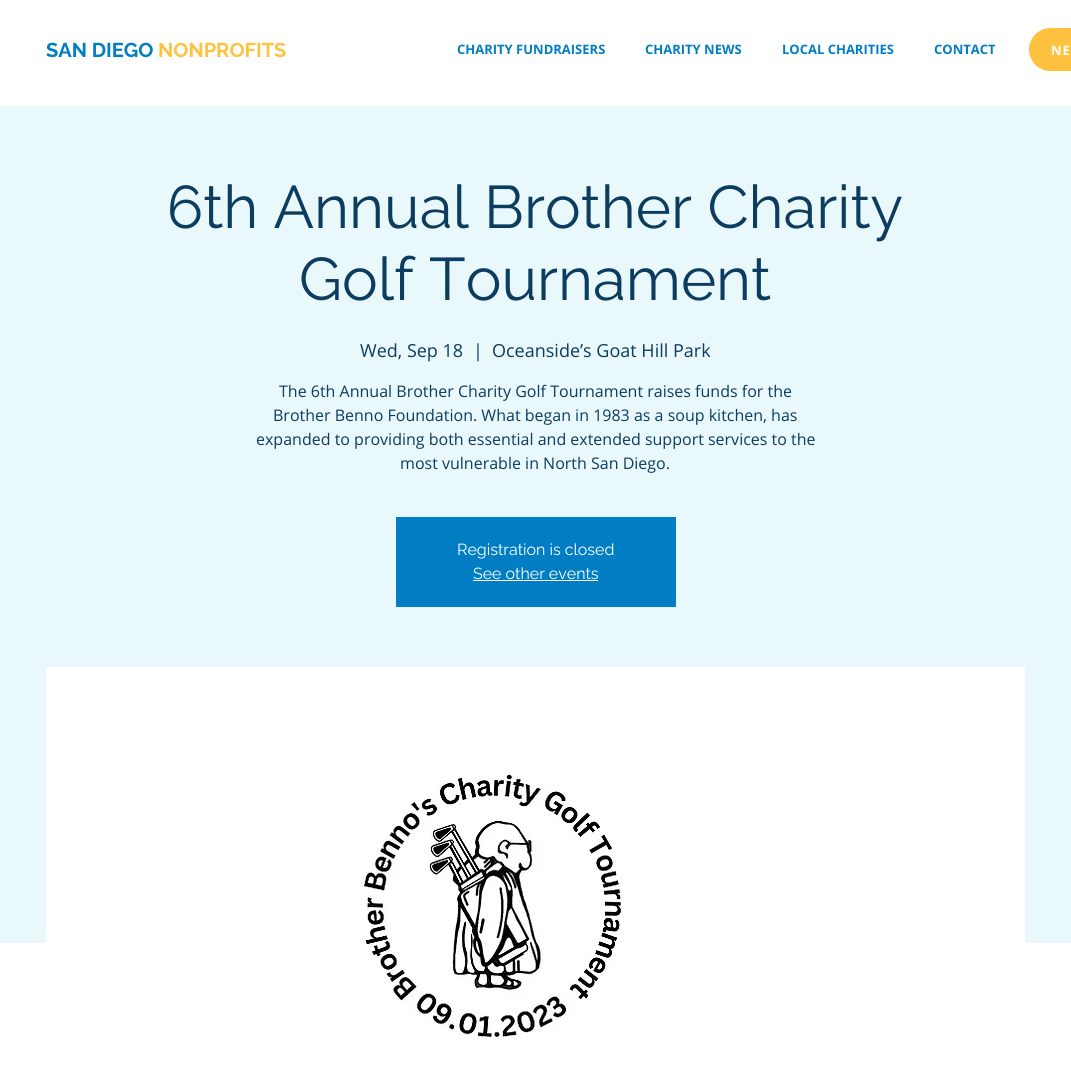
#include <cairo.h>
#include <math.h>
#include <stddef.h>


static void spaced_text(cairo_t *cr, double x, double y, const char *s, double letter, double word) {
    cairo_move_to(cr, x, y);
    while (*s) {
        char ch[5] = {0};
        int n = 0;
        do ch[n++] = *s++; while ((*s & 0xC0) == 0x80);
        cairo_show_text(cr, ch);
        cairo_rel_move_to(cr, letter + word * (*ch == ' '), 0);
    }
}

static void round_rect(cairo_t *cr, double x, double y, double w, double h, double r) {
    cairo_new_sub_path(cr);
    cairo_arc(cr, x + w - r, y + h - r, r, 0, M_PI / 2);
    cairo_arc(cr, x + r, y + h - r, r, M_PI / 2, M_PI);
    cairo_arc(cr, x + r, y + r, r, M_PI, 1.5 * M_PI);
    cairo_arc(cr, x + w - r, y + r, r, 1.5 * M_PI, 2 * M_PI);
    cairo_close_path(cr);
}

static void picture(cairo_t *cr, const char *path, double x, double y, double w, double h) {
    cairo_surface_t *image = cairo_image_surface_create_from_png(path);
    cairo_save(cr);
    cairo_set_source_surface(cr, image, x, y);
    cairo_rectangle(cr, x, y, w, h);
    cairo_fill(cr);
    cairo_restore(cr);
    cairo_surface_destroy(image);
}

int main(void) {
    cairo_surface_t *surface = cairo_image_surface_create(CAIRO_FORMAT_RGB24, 1071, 1066);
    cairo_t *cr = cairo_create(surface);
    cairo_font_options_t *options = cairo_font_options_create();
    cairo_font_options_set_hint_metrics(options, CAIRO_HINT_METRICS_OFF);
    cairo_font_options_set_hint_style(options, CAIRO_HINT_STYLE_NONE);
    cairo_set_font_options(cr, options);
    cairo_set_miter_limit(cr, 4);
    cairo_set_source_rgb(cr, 1, 1, 1);
    cairo_paint(cr);
    cairo_select_font_face(cr, "Raleway", CAIRO_FONT_SLANT_NORMAL, CAIRO_FONT_WEIGHT_BOLD);
    cairo_set_font_size(cr, 20);
    cairo_set_source_rgb(cr, 0.004, 0.49, 0.765);
    cairo_move_to(cr, 46, 57);
    cairo_show_text(cr, "SAN DIEGO");
    cairo_set_source_rgb(cr, 0.996, 0.761, 0.251);
    cairo_move_to(cr, 158, 57);
    cairo_show_text(cr, "NONPROFITS");
    cairo_select_font_face(cr, "Open Sans", CAIRO_FONT_SLANT_NORMAL, CAIRO_FONT_WEIGHT_BOLD);
    cairo_set_font_size(cr, 13);
    cairo_set_source_rgb(cr, 0.004, 0.49, 0.765);
    cairo_move_to(cr, 457, 54);
    cairo_show_text(cr, "CHARITY FUNDRAISERS");
    cairo_move_to(cr, 645, 54);
    cairo_show_text(cr, "CHARITY NEWS");
    cairo_move_to(cr, 782, 54);
    cairo_show_text(cr, "LOCAL CHARITIES");
    cairo_move_to(cr, 934, 54);
    cairo_show_text(cr, "CONTACT");
    cairo_set_source_rgb(cr, 0.996, 0.761, 0.251);
    round_rect(cr, 1029, 28, 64, 43, 21.5);
    cairo_fill(cr);
    cairo_set_source_rgb(cr, 1, 1, 1);
    spaced_text(cr, 1051, 55, "NE", 1, 0);
    cairo_set_source_rgb(cr, 0.914, 0.969, 0.98);
    cairo_rectangle(cr, 0, 106, 1071, 837);
    cairo_fill(cr);
    cairo_select_font_face(cr, "Raleway", CAIRO_FONT_SLANT_NORMAL, CAIRO_FONT_WEIGHT_NORMAL);
    cairo_set_font_size(cr, 60);
    cairo_set_source_rgb(cr, 0.047, 0.235, 0.376);
    cairo_move_to(cr, 167, 228);
    cairo_show_text(cr, "6th Annual Brother Charity");
    cairo_move_to(cr, 299, 300);
    cairo_show_text(cr, "Golf Tournament");
    cairo_select_font_face(cr, "Open Sans", CAIRO_FONT_SLANT_NORMAL, CAIRO_FONT_WEIGHT_NORMAL);
    cairo_set_font_size(cr, 18);
    cairo_move_to(cr, 360, 357);
    cairo_show_text(cr, "Wed, Sep 18");
    cairo_move_to(cr, 473, 357);
    cairo_show_text(cr, "|");
    cairo_move_to(cr, 492, 357);
    cairo_show_text(cr, "Oceanside’s Goat Hill Park");
    cairo_set_font_size(cr, 16);
    cairo_move_to(cr, 279, 397);
    cairo_show_text(cr, "The 6th Annual Brother Charity Golf Tournament raises funds for the");
    cairo_move_to(cr, 273, 421);
    cairo_show_text(cr, "Brother Benno Foundation. What began in 1983 as a soup kitchen, has");
    cairo_move_to(cr, 256, 445);
    cairo_show_text(cr, "expanded to providing both essential and extended support services to the");
    cairo_move_to(cr, 400, 469);
    cairo_show_text(cr, "most vulnerable in North San Diego.");
    cairo_set_source_rgb(cr, 0.004, 0.49, 0.765);
    cairo_rectangle(cr, 396, 517, 280, 90);
    cairo_fill(cr);
    cairo_select_font_face(cr, "Raleway", CAIRO_FONT_SLANT_NORMAL, CAIRO_FONT_WEIGHT_NORMAL);
    cairo_set_source_rgb(cr, 1, 1, 1);
    cairo_move_to(cr, 457, 555);
    cairo_show_text(cr, "Registration is closed");
    cairo_move_to(cr, 473, 579);
    cairo_show_text(cr, "See other events");
    cairo_rectangle(cr, 473, 580, 125, 1);
    cairo_fill(cr);
    cairo_rectangle(cr, 46, 667, 979, 276);
    cairo_fill(cr);
    picture(cr, "img1.png", 362, 774, 260, 265);
    cairo_surface_write_to_png(surface, "page.png");
    cairo_font_options_destroy(options);
    cairo_destroy(cr);
    cairo_surface_destroy(surface);
    return 0;
}
